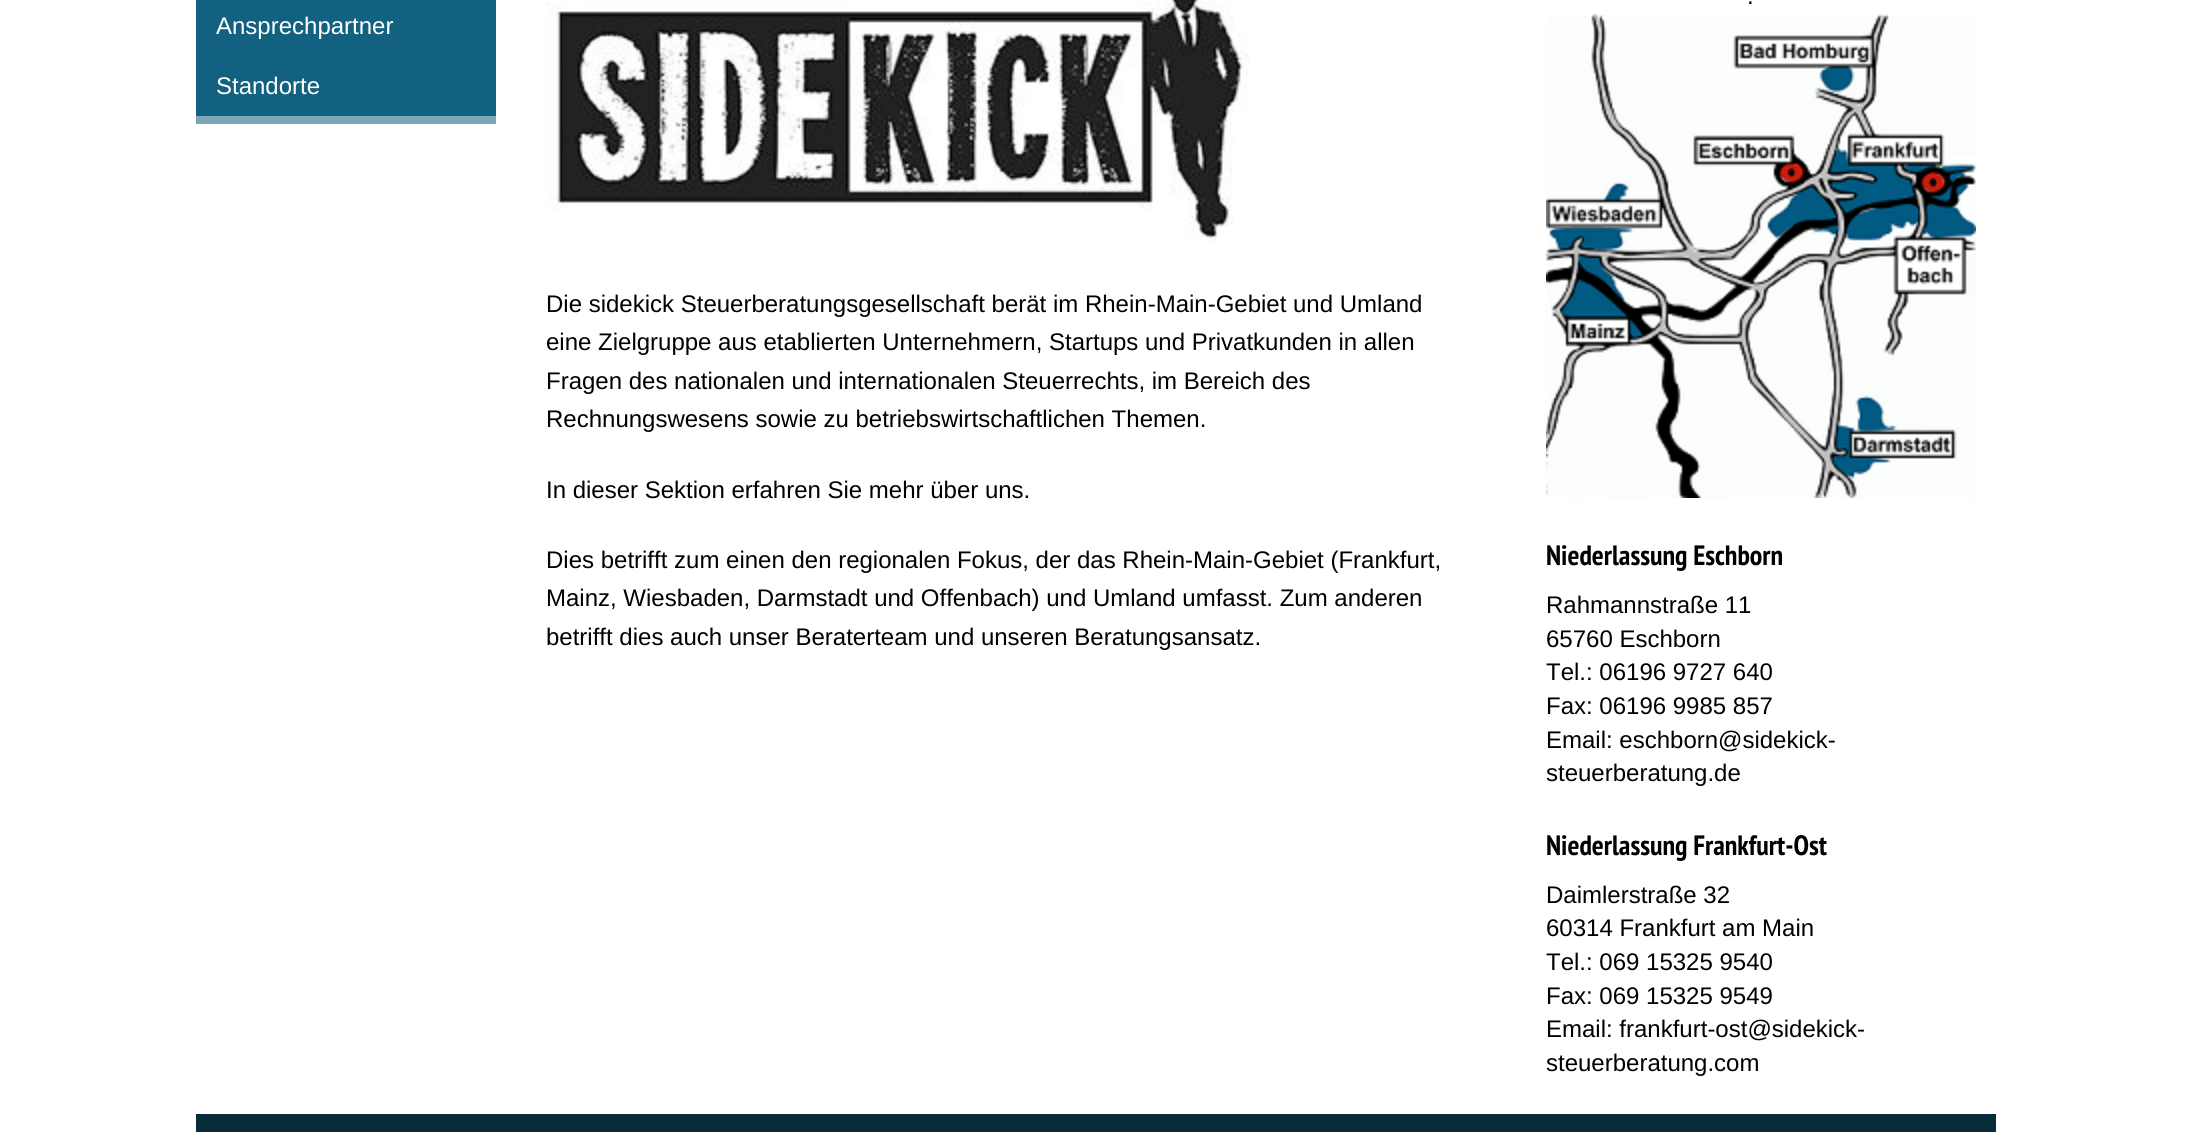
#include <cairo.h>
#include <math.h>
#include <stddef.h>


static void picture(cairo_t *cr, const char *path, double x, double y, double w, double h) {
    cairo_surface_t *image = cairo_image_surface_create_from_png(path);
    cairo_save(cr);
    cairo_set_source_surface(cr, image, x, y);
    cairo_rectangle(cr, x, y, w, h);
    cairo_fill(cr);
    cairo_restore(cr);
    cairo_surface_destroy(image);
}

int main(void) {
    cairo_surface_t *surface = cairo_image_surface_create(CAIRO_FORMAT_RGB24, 2191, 1132);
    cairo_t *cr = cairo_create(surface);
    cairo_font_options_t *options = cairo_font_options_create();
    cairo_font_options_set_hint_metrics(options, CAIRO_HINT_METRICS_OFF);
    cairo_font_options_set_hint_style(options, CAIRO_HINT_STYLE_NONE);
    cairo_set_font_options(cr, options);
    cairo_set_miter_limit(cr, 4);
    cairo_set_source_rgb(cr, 1, 1, 1);
    cairo_paint(cr);
    cairo_set_source_rgb(cr, 0.071, 0.38, 0.502);
    cairo_rectangle(cr, 196, 0, 300, 116);
    cairo_fill(cr);
    cairo_set_source_rgb(cr, 0.482, 0.655, 0.722);
    cairo_rectangle(cr, 196, 116, 300, 8);
    cairo_fill(cr);
    cairo_select_font_face(cr, "Liberation Sans", CAIRO_FONT_SLANT_NORMAL, CAIRO_FONT_WEIGHT_NORMAL);
    cairo_set_font_size(cr, 24);
    cairo_set_source_rgb(cr, 1, 1, 1);
    cairo_move_to(cr, 216, 34);
    cairo_show_text(cr, "Ansprechpartner");
    cairo_move_to(cr, 216, 94);
    cairo_show_text(cr, "Standorte");
    picture(cr, "img1.png", 546, 0, 704, 242);
    cairo_set_source_rgb(cr, 0, 0, 0);
    cairo_move_to(cr, 546, 312);
    cairo_show_text(cr, "Die sidekick Steuerberatungsgesellschaft berät im Rhein-Main-Gebiet und Umland");
    cairo_move_to(cr, 546, 350);
    cairo_show_text(cr, "eine Zielgruppe aus etablierten Unternehmern, Startups und Privatkunden in allen");
    cairo_move_to(cr, 546, 389);
    cairo_show_text(cr, "Fragen des nationalen und internationalen Steuerrechts, im Bereich des");
    cairo_move_to(cr, 546, 427);
    cairo_show_text(cr, "Rechnungswesens sowie zu betriebswirtschaftlichen Themen.");
    cairo_move_to(cr, 546, 498);
    cairo_show_text(cr, "In dieser Sektion erfahren Sie mehr über uns.");
    cairo_move_to(cr, 546, 568);
    cairo_show_text(cr, "Dies betrifft zum einen den regionalen Fokus, der das Rhein-Main-Gebiet (Frankfurt,");
    cairo_move_to(cr, 546, 606);
    cairo_show_text(cr, "Mainz, Wiesbaden, Darmstadt und Offenbach) und Umland umfasst. Zum anderen");
    cairo_move_to(cr, 546, 645);
    cairo_show_text(cr, "betrifft dies auch unser Beraterteam und unseren Beratungsansatz.");
    cairo_move_to(cr, 1747, 4);
    cairo_show_text(cr, ".");
    picture(cr, "img2.png", 1546, 14, 430, 484);
    cairo_select_font_face(cr, "PT Sans Narrow", CAIRO_FONT_SLANT_NORMAL, CAIRO_FONT_WEIGHT_BOLD);
    cairo_set_font_size(cr, 28);
    cairo_move_to(cr, 1546, 565);
    cairo_show_text(cr, "Niederlassung Eschborn");
    cairo_select_font_face(cr, "Liberation Sans", CAIRO_FONT_SLANT_NORMAL, CAIRO_FONT_WEIGHT_NORMAL);
    cairo_set_font_size(cr, 24);
    cairo_move_to(cr, 1546, 613);
    cairo_show_text(cr, "Rahmannstraße 11");
    cairo_move_to(cr, 1546, 647);
    cairo_show_text(cr, "65760 Eschborn");
    cairo_move_to(cr, 1546, 680);
    cairo_show_text(cr, "Tel.: 06196 9727 640");
    cairo_move_to(cr, 1546, 714);
    cairo_show_text(cr, "Fax: 06196 9985 857");
    cairo_move_to(cr, 1546, 748);
    cairo_show_text(cr, "Email: eschborn@sidekick-");
    cairo_move_to(cr, 1546, 781);
    cairo_show_text(cr, "steuerberatung.de");
    cairo_select_font_face(cr, "PT Sans Narrow", CAIRO_FONT_SLANT_NORMAL, CAIRO_FONT_WEIGHT_BOLD);
    cairo_set_font_size(cr, 28);
    cairo_move_to(cr, 1546, 855);
    cairo_show_text(cr, "Niederlassung Frankfurt-Ost");
    cairo_select_font_face(cr, "Liberation Sans", CAIRO_FONT_SLANT_NORMAL, CAIRO_FONT_WEIGHT_NORMAL);
    cairo_set_font_size(cr, 24);
    cairo_move_to(cr, 1546, 903);
    cairo_show_text(cr, "Daimlerstraße 32");
    cairo_move_to(cr, 1546, 936);
    cairo_show_text(cr, "60314 Frankfurt am Main");
    cairo_move_to(cr, 1546, 970);
    cairo_show_text(cr, "Tel.: 069 15325 9540");
    cairo_move_to(cr, 1546, 1004);
    cairo_show_text(cr, "Fax: 069 15325 9549");
    cairo_move_to(cr, 1546, 1037);
    cairo_show_text(cr, "Email: frankfurt-ost@sidekick-");
    cairo_move_to(cr, 1546, 1071);
    cairo_show_text(cr, "steuerberatung.com");
    cairo_set_source_rgb(cr, 0.031, 0.169, 0.22);
    cairo_rectangle(cr, 196, 1114, 1800, 18);
    cairo_fill(cr);
    cairo_surface_write_to_png(surface, "page.png");
    cairo_font_options_destroy(options);
    cairo_destroy(cr);
    cairo_surface_destroy(surface);
    return 0;
}
